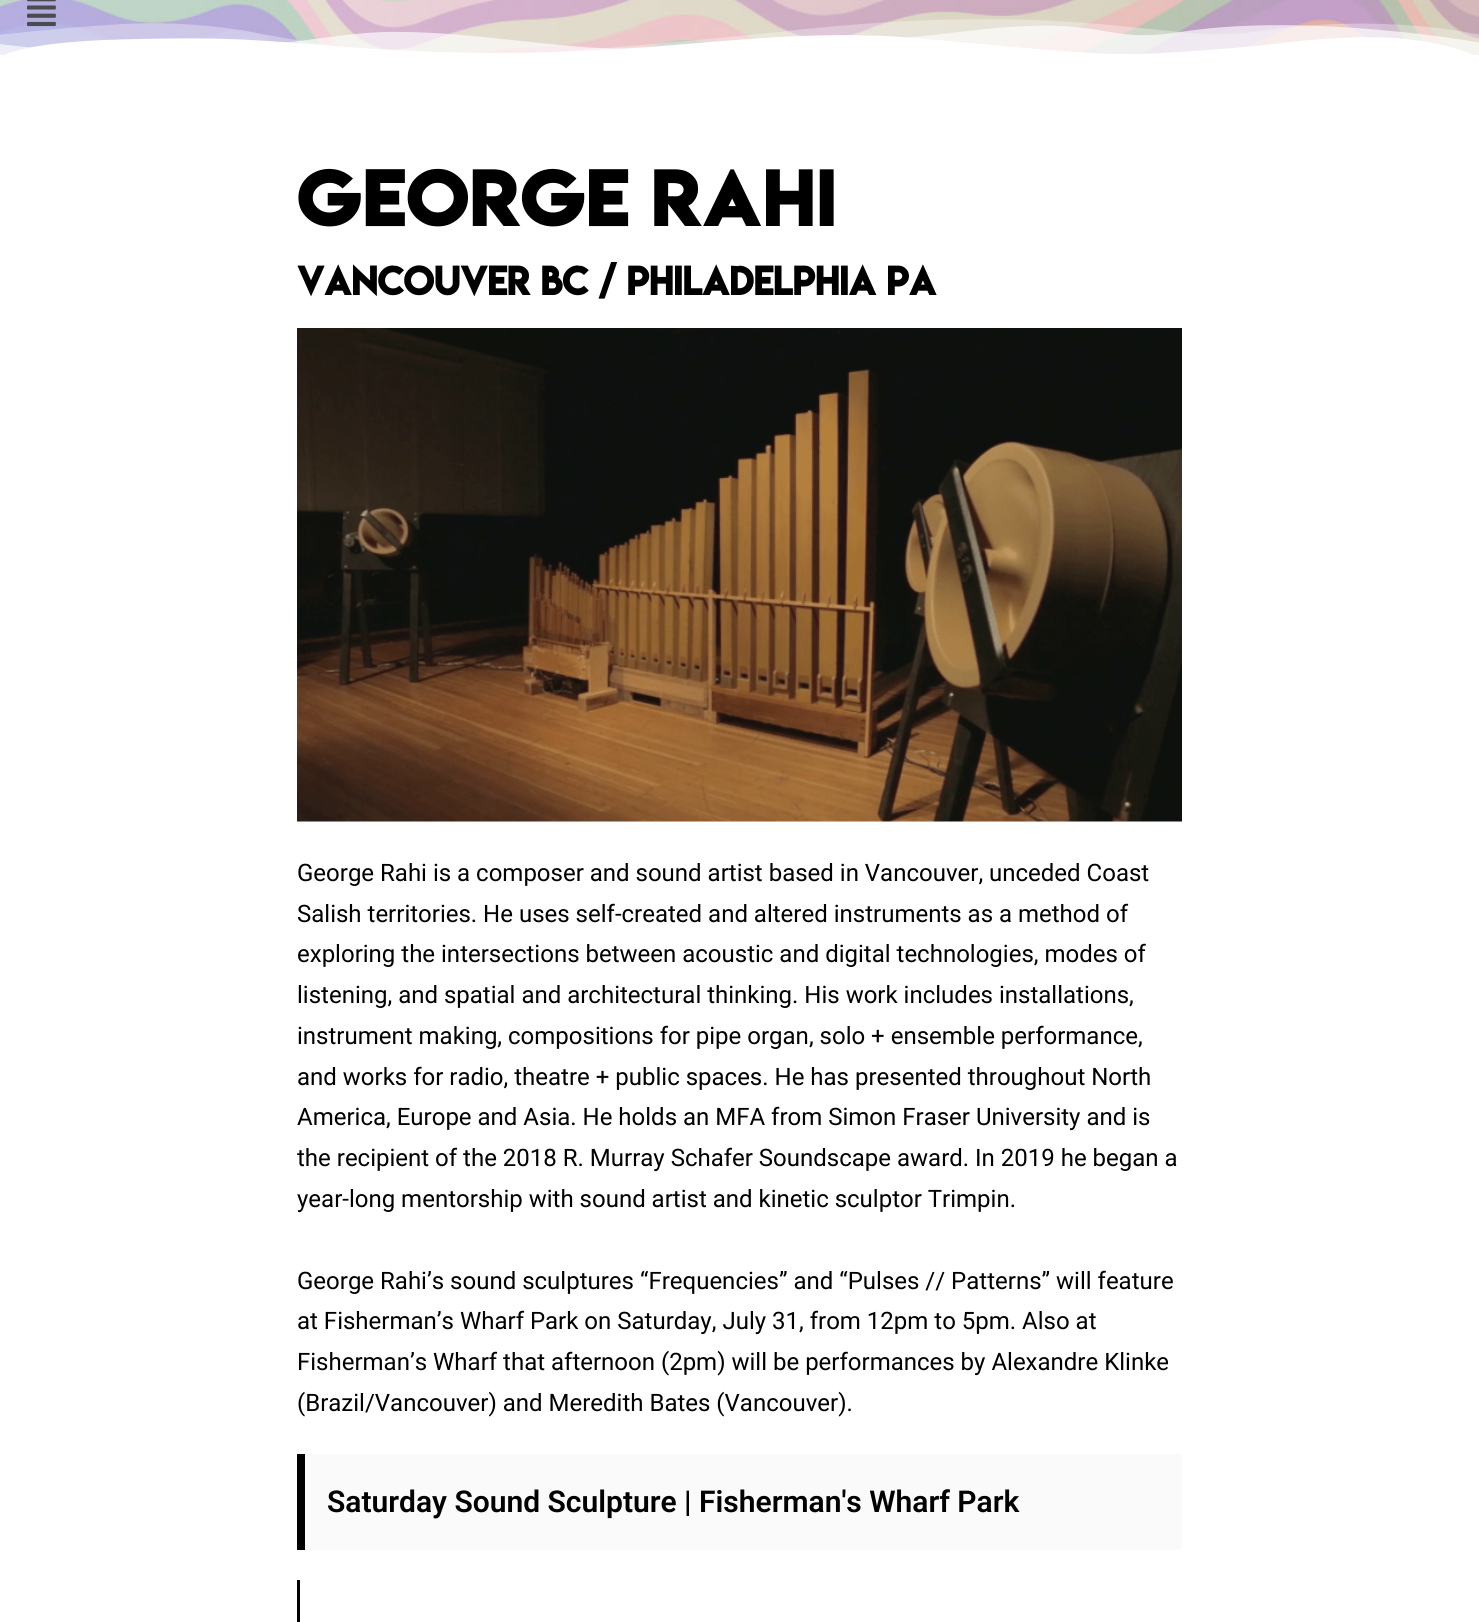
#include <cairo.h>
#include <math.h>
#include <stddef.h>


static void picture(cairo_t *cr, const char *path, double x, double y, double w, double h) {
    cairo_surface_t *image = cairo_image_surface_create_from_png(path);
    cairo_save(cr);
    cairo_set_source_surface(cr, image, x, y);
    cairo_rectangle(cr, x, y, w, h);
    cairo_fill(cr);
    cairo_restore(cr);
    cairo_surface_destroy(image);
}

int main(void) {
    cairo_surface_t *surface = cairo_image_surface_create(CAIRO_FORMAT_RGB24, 1479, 1622);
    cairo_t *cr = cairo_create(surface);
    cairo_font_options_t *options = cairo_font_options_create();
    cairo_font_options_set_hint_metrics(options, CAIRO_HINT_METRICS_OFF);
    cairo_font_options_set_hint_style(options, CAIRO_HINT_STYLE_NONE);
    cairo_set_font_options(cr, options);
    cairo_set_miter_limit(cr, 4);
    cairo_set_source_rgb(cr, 1, 1, 1);
    cairo_paint(cr);
    picture(cr, "img1.png", 0, 0, 1479, 55);
    picture(cr, "img3.png", 0, 19, 1479, 36);
    picture(cr, "img2.png", 27, 0, 29, 27);
    cairo_select_font_face(cr, "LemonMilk", CAIRO_FONT_SLANT_NORMAL, CAIRO_FONT_WEIGHT_BOLD);
    cairo_set_font_size(cr, 72);
    cairo_set_source_rgb(cr, 0, 0, 0);
    cairo_move_to(cr, 297, 226);
    cairo_show_text(cr, "George Rahi");
    cairo_select_font_face(cr, "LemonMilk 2", CAIRO_FONT_SLANT_NORMAL, CAIRO_FONT_WEIGHT_BOLD);
    cairo_set_font_size(cr, 36);
    cairo_move_to(cr, 297, 295);
    cairo_show_text(cr, "Vancouver BC / Philadelphia PA");
    picture(cr, "img4.png", 297, 328, 885, 494);
    cairo_select_font_face(cr, "Roboto", CAIRO_FONT_SLANT_NORMAL, CAIRO_FONT_WEIGHT_NORMAL);
    cairo_set_font_size(cr, 24);
    cairo_move_to(cr, 297, 881);
    cairo_show_text(cr, "George Rahi is a composer and sound artist based in Vancouver, unceded Coast");
    cairo_move_to(cr, 297, 922);
    cairo_show_text(cr, "Salish territories. He uses self-created and altered instruments as a method of");
    cairo_move_to(cr, 297, 962);
    cairo_show_text(cr, "exploring the intersections between acoustic and digital technologies, modes of");
    cairo_move_to(cr, 297, 1003);
    cairo_show_text(cr, "listening, and spatial and architectural thinking. His work includes installations,");
    cairo_move_to(cr, 297, 1044);
    cairo_show_text(cr, "instrument making, compositions for pipe organ, solo + ensemble performance,");
    cairo_move_to(cr, 297, 1085);
    cairo_show_text(cr, "and works for radio, theatre + public spaces. He has presented throughout North");
    cairo_move_to(cr, 297, 1125);
    cairo_show_text(cr, "America, Europe and Asia. He holds an MFA from Simon Fraser University and is");
    cairo_move_to(cr, 297, 1166);
    cairo_show_text(cr, "the recipient of the 2018 R. Murray Schafer Soundscape award. In 2019 he began a");
    cairo_move_to(cr, 297, 1207);
    cairo_show_text(cr, "year-long mentorship with sound artist and kinetic sculptor Trimpin.");
    cairo_move_to(cr, 297, 1289);
    cairo_show_text(cr, "George Rahi’s sound sculptures “Frequencies” and “Pulses // Patterns” will feature");
    cairo_move_to(cr, 297, 1329);
    cairo_show_text(cr, "at Fisherman’s Wharf Park on Saturday, July 31, from 12pm to 5pm. Also at");
    cairo_move_to(cr, 297, 1370);
    cairo_show_text(cr, "Fisherman’s Wharf that afternoon (2pm) will be performances by Alexandre Klinke");
    cairo_move_to(cr, 297, 1411);
    cairo_show_text(cr, "(Brazil/Vancouver) and Meredith Bates (Vancouver).");
    cairo_set_source_rgb(cr, 0.98, 0.98, 0.98);
    cairo_rectangle(cr, 305, 1454, 877, 96);
    cairo_fill(cr);
    cairo_set_source_rgb(cr, 0, 0, 0);
    cairo_rectangle(cr, 297, 1454, 8, 96);
    cairo_fill(cr);
    cairo_select_font_face(cr, "Roboto SemiBold", CAIRO_FONT_SLANT_NORMAL, CAIRO_FONT_WEIGHT_NORMAL);
    cairo_set_font_size(cr, 30);
    cairo_move_to(cr, 327, 1512);
    cairo_show_text(cr, "Saturday Sound Sculpture | Fisherman's Wharf Park");
    cairo_rectangle(cr, 297, 1580, 3, 42);
    cairo_fill(cr);
    cairo_surface_write_to_png(surface, "page.png");
    cairo_font_options_destroy(options);
    cairo_destroy(cr);
    cairo_surface_destroy(surface);
    return 0;
}
